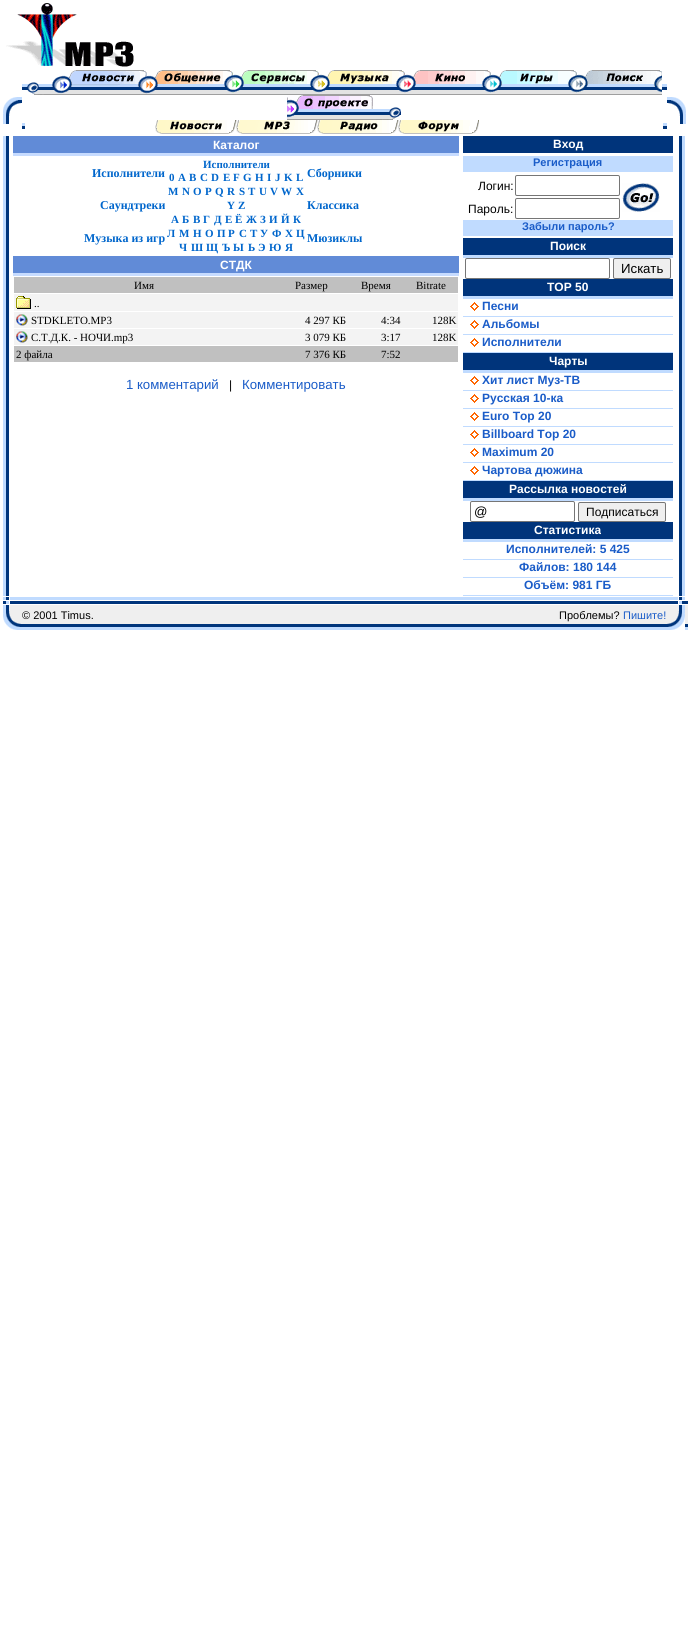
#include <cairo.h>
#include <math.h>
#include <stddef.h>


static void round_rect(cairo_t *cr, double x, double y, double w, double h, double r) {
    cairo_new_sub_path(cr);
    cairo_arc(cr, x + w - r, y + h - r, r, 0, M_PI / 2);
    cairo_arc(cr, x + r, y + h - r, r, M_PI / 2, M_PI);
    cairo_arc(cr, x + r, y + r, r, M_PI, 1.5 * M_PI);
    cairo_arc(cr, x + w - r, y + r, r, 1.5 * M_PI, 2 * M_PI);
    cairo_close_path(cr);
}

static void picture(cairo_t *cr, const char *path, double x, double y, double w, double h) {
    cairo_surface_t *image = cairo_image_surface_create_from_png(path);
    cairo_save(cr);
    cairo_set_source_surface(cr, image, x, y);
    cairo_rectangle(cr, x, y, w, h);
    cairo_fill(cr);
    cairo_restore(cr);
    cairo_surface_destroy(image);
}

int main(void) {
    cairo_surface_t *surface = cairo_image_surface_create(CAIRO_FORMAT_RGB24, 688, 1647);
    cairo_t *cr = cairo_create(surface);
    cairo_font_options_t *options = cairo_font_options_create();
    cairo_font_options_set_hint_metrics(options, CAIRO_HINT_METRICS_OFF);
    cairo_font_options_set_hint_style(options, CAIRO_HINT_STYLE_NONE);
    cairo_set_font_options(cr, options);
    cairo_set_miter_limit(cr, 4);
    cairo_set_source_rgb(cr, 1, 1, 1);
    cairo_paint(cr);
    picture(cr, "img1.png", 6, 3, 128, 65);
    picture(cr, "img2.png", 3, 97, 19, 27);
    picture(cr, "img3.png", 22, 84, 3, 45);
    picture(cr, "img4.png", 25, 84, 638, 6);
    picture(cr, "img5.png", 27, 76, 33, 19);
    picture(cr, "img6.png", 60, 70, 86, 25);
    picture(cr, "img7.png", 146, 70, 86, 25);
    picture(cr, "img8.png", 232, 70, 86, 25);
    picture(cr, "img9.png", 318, 70, 86, 25);
    picture(cr, "img10.png", 404, 70, 86, 25);
    picture(cr, "img11.png", 490, 70, 86, 25);
    picture(cr, "img12.png", 576, 70, 86, 25);
    picture(cr, "img13.png", 287, 95, 86, 25);
    picture(cr, "img14.png", 373, 107, 28, 13);
    picture(cr, "img15.png", 663, 84, 4, 45);
    picture(cr, "img16.png", 667, 97, 19, 27);
    picture(cr, "img17.png", 155, 120, 81, 14);
    picture(cr, "img18.png", 236, 120, 81, 14);
    picture(cr, "img19.png", 317, 120, 81, 14);
    picture(cr, "img20.png", 398, 120, 81, 14);
    cairo_set_source_rgb(cr, 0.753, 0.859, 1);
    cairo_rectangle(cr, 3, 136, 3, 460);
    cairo_fill(cr);
    cairo_set_source_rgb(cr, 0, 0.208, 0.486);
    cairo_rectangle(cr, 6, 136, 3, 460);
    cairo_fill(cr);
    cairo_set_source_rgb(cr, 0.38, 0.545, 0.843);
    cairo_rectangle(cr, 13, 136, 446, 17);
    cairo_fill(cr);
    cairo_set_source_rgb(cr, 0.776, 0.859, 1);
    cairo_rectangle(cr, 13, 153, 446, 3);
    cairo_fill(cr);
    cairo_select_font_face(cr, "Liberation Sans", CAIRO_FONT_SLANT_NORMAL, CAIRO_FONT_WEIGHT_BOLD);
    cairo_set_font_size(cr, 12);
    cairo_set_source_rgb(cr, 1, 1, 1);
    cairo_move_to(cr, 213, 149);
    cairo_show_text(cr, "Каталог");
    cairo_select_font_face(cr, "Liberation Serif", CAIRO_FONT_SLANT_NORMAL, CAIRO_FONT_WEIGHT_BOLD);
    cairo_set_source_rgb(cr, 0, 0.4, 0.8);
    cairo_move_to(cr, 92, 177);
    cairo_show_text(cr, "Исполнители");
    cairo_set_font_size(cr, 11);
    cairo_move_to(cr, 203, 168);
    cairo_show_text(cr, "Исполнители");
    cairo_move_to(cr, 169, 181);
    cairo_show_text(cr, "0");
    cairo_move_to(cr, 178, 181);
    cairo_show_text(cr, "A");
    cairo_move_to(cr, 189, 181);
    cairo_show_text(cr, "B");
    cairo_move_to(cr, 200, 181);
    cairo_show_text(cr, "C");
    cairo_move_to(cr, 211, 181);
    cairo_show_text(cr, "D");
    cairo_move_to(cr, 223, 181);
    cairo_show_text(cr, "E");
    cairo_move_to(cr, 233, 181);
    cairo_show_text(cr, "F");
    cairo_move_to(cr, 243, 181);
    cairo_show_text(cr, "G");
    cairo_move_to(cr, 255, 181);
    cairo_show_text(cr, "H");
    cairo_move_to(cr, 267, 181);
    cairo_show_text(cr, "I");
    cairo_move_to(cr, 275, 181);
    cairo_show_text(cr, "J");
    cairo_move_to(cr, 284, 181);
    cairo_show_text(cr, "K");
    cairo_move_to(cr, 296, 181);
    cairo_show_text(cr, "L");
    cairo_move_to(cr, 168, 195);
    cairo_show_text(cr, "M");
    cairo_move_to(cr, 182, 195);
    cairo_show_text(cr, "N");
    cairo_move_to(cr, 193, 195);
    cairo_show_text(cr, "O");
    cairo_move_to(cr, 205, 195);
    cairo_show_text(cr, "P");
    cairo_move_to(cr, 215, 195);
    cairo_show_text(cr, "Q");
    cairo_move_to(cr, 227, 195);
    cairo_show_text(cr, "R");
    cairo_move_to(cr, 239, 195);
    cairo_show_text(cr, "S");
    cairo_move_to(cr, 248, 195);
    cairo_show_text(cr, "T");
    cairo_move_to(cr, 259, 195);
    cairo_show_text(cr, "U");
    cairo_move_to(cr, 270, 195);
    cairo_show_text(cr, "V");
    cairo_move_to(cr, 281, 195);
    cairo_show_text(cr, "W");
    cairo_move_to(cr, 296, 195);
    cairo_show_text(cr, "X");
    cairo_move_to(cr, 227, 209);
    cairo_show_text(cr, "Y");
    cairo_move_to(cr, 238, 209);
    cairo_show_text(cr, "Z");
    cairo_move_to(cr, 171, 223);
    cairo_show_text(cr, "А");
    cairo_move_to(cr, 182, 223);
    cairo_show_text(cr, "Б");
    cairo_move_to(cr, 193, 223);
    cairo_show_text(cr, "В");
    cairo_move_to(cr, 203, 223);
    cairo_show_text(cr, "Г");
    cairo_move_to(cr, 214, 223);
    cairo_show_text(cr, "Д");
    cairo_move_to(cr, 225, 223);
    cairo_show_text(cr, "Е");
    cairo_move_to(cr, 235, 223);
    cairo_show_text(cr, "Ё");
    cairo_move_to(cr, 246, 223);
    cairo_show_text(cr, "Ж");
    cairo_move_to(cr, 260, 223);
    cairo_show_text(cr, "З");
    cairo_move_to(cr, 269, 223);
    cairo_show_text(cr, "И");
    cairo_move_to(cr, 281, 223);
    cairo_show_text(cr, "Й");
    cairo_move_to(cr, 293, 223);
    cairo_show_text(cr, "К");
    cairo_move_to(cr, 167, 237);
    cairo_show_text(cr, "Л");
    cairo_move_to(cr, 179, 237);
    cairo_show_text(cr, "М");
    cairo_move_to(cr, 193, 237);
    cairo_show_text(cr, "Н");
    cairo_move_to(cr, 205, 237);
    cairo_show_text(cr, "О");
    cairo_move_to(cr, 217, 237);
    cairo_show_text(cr, "П");
    cairo_move_to(cr, 228, 237);
    cairo_show_text(cr, "Р");
    cairo_move_to(cr, 239, 237);
    cairo_show_text(cr, "С");
    cairo_move_to(cr, 250, 237);
    cairo_show_text(cr, "Т");
    cairo_move_to(cr, 260, 237);
    cairo_show_text(cr, "У");
    cairo_move_to(cr, 272, 237);
    cairo_show_text(cr, "Ф");
    cairo_move_to(cr, 285, 237);
    cairo_show_text(cr, "Х");
    cairo_move_to(cr, 296, 237);
    cairo_show_text(cr, "Ц");
    cairo_move_to(cr, 179, 251);
    cairo_show_text(cr, "Ч");
    cairo_move_to(cr, 191, 251);
    cairo_show_text(cr, "Ш");
    cairo_move_to(cr, 206, 251);
    cairo_show_text(cr, "Щ");
    cairo_move_to(cr, 222, 251);
    cairo_show_text(cr, "Ъ");
    cairo_move_to(cr, 233, 251);
    cairo_show_text(cr, "Ы");
    cairo_move_to(cr, 248, 251);
    cairo_show_text(cr, "Ь");
    cairo_move_to(cr, 258, 251);
    cairo_show_text(cr, "Э");
    cairo_move_to(cr, 269, 251);
    cairo_show_text(cr, "Ю");
    cairo_move_to(cr, 285, 251);
    cairo_show_text(cr, "Я");
    cairo_set_font_size(cr, 12);
    cairo_move_to(cr, 307, 177);
    cairo_show_text(cr, "Сборники");
    cairo_move_to(cr, 100, 209);
    cairo_show_text(cr, "Саундтреки");
    cairo_move_to(cr, 307, 209);
    cairo_show_text(cr, "Классика");
    cairo_move_to(cr, 84, 242);
    cairo_show_text(cr, "Музыка из игр");
    cairo_move_to(cr, 307, 242);
    cairo_show_text(cr, "Мюзиклы");
    cairo_set_source_rgb(cr, 0.38, 0.545, 0.843);
    cairo_rectangle(cr, 13, 256, 446, 17);
    cairo_fill(cr);
    cairo_set_source_rgb(cr, 0.776, 0.859, 1);
    cairo_rectangle(cr, 13, 273, 446, 3);
    cairo_fill(cr);
    cairo_select_font_face(cr, "Liberation Sans", CAIRO_FONT_SLANT_NORMAL, CAIRO_FONT_WEIGHT_BOLD);
    cairo_set_source_rgb(cr, 1, 1, 1);
    cairo_move_to(cr, 220, 269);
    cairo_show_text(cr, "СТДК");
    cairo_set_source_rgb(cr, 0.753, 0.753, 0.753);
    cairo_rectangle(cr, 14, 277, 444, 16);
    cairo_fill(cr);
    cairo_select_font_face(cr, "Liberation Serif", CAIRO_FONT_SLANT_NORMAL, CAIRO_FONT_WEIGHT_NORMAL);
    cairo_set_font_size(cr, 11);
    cairo_set_source_rgb(cr, 0, 0, 0);
    cairo_move_to(cr, 134, 289);
    cairo_show_text(cr, "Имя");
    cairo_move_to(cr, 295, 289);
    cairo_show_text(cr, "Размер");
    cairo_move_to(cr, 361, 289);
    cairo_show_text(cr, "Время");
    cairo_move_to(cr, 416, 289);
    cairo_show_text(cr, "Bitrate");
    cairo_set_source_rgb(cr, 0.953, 0.953, 0.953);
    cairo_rectangle(cr, 14, 294, 444, 17);
    cairo_fill(cr);
    picture(cr, "img21.png", 16, 296, 15, 13);
    cairo_set_source_rgb(cr, 0, 0, 0);
    cairo_move_to(cr, 34, 307);
    cairo_show_text(cr, "..");
    cairo_set_source_rgb(cr, 0.953, 0.953, 0.953);
    cairo_rectangle(cr, 14, 312, 444, 16);
    cairo_fill(cr);
    picture(cr, "img22.png", 16, 314, 12, 12);
    cairo_set_source_rgb(cr, 0, 0, 0);
    cairo_move_to(cr, 31, 324);
    cairo_show_text(cr, "STDKLETO.MP3");
    cairo_move_to(cr, 305, 324);
    cairo_show_text(cr, "4 297 КБ");
    cairo_move_to(cr, 381, 324);
    cairo_show_text(cr, "4:34");
    cairo_move_to(cr, 432, 324);
    cairo_show_text(cr, "128K");
    cairo_set_source_rgb(cr, 0.953, 0.953, 0.953);
    cairo_rectangle(cr, 14, 329, 444, 16);
    cairo_fill(cr);
    picture(cr, "img22.png", 16, 331, 12, 12);
    cairo_set_source_rgb(cr, 0, 0, 0);
    cairo_move_to(cr, 31, 341);
    cairo_show_text(cr, "С.Т.Д.К. - НОЧИ.mp3");
    cairo_move_to(cr, 305, 341);
    cairo_show_text(cr, "3 079 КБ");
    cairo_move_to(cr, 381, 341);
    cairo_show_text(cr, "3:17");
    cairo_move_to(cr, 432, 341);
    cairo_show_text(cr, "128K");
    cairo_set_source_rgb(cr, 0.753, 0.753, 0.753);
    cairo_rectangle(cr, 14, 346, 444, 16);
    cairo_fill(cr);
    cairo_set_source_rgb(cr, 0, 0, 0);
    cairo_move_to(cr, 16, 358);
    cairo_show_text(cr, "2 файла");
    cairo_move_to(cr, 305, 358);
    cairo_show_text(cr, "7 376 КБ");
    cairo_move_to(cr, 381, 358);
    cairo_show_text(cr, "7:52");
    cairo_select_font_face(cr, "Liberation Sans", CAIRO_FONT_SLANT_NORMAL, CAIRO_FONT_WEIGHT_NORMAL);
    cairo_set_font_size(cr, 13.25);
    cairo_set_source_rgb(cr, 0.102, 0.361, 0.784);
    cairo_move_to(cr, 126, 389);
    cairo_show_text(cr, "1 комментарий");
    cairo_set_font_size(cr, 12);
    cairo_set_source_rgb(cr, 0, 0, 0);
    cairo_move_to(cr, 229, 389);
    cairo_show_text(cr, "|");
    cairo_set_font_size(cr, 13.25);
    cairo_set_source_rgb(cr, 0.102, 0.361, 0.784);
    cairo_move_to(cr, 242, 389);
    cairo_show_text(cr, "Комментировать");
    cairo_set_source_rgb(cr, 0, 0.204, 0.482);
    cairo_rectangle(cr, 463, 136, 210, 17);
    cairo_fill(cr);
    cairo_select_font_face(cr, "Liberation Sans", CAIRO_FONT_SLANT_NORMAL, CAIRO_FONT_WEIGHT_BOLD);
    cairo_set_font_size(cr, 12);
    cairo_set_source_rgb(cr, 1, 1, 1);
    cairo_move_to(cr, 553, 148);
    cairo_show_text(cr, "Вход");
    cairo_set_source_rgb(cr, 0.753, 0.859, 1);
    cairo_rectangle(cr, 463, 156, 210, 16);
    cairo_fill(cr);
    cairo_set_font_size(cr, 11);
    cairo_set_source_rgb(cr, 0.102, 0.361, 0.784);
    cairo_move_to(cr, 533, 166);
    cairo_show_text(cr, "Регистрация");
    cairo_select_font_face(cr, "Liberation Sans", CAIRO_FONT_SLANT_NORMAL, CAIRO_FONT_WEIGHT_NORMAL);
    cairo_set_font_size(cr, 12);
    cairo_set_source_rgb(cr, 0, 0, 0);
    cairo_move_to(cr, 478, 190);
    cairo_show_text(cr, "Логин:");
    round_rect(cr, 515.5, 175.5, 104, 20, 1.5);
    cairo_set_source_rgb(cr, 0.463, 0.463, 0.463);
    cairo_set_line_width(cr, 1);
    cairo_stroke(cr);
    picture(cr, "img23.png", 622, 183, 38, 29);
    cairo_set_source_rgb(cr, 0, 0, 0);
    cairo_move_to(cr, 468, 213);
    cairo_show_text(cr, "Пароль:");
    round_rect(cr, 515.5, 198.5, 104, 20, 1.5);
    cairo_set_source_rgb(cr, 0.463, 0.463, 0.463);
    cairo_stroke(cr);
    cairo_set_source_rgb(cr, 0.753, 0.859, 1);
    cairo_rectangle(cr, 463, 220, 210, 16);
    cairo_fill(cr);
    cairo_select_font_face(cr, "Liberation Sans", CAIRO_FONT_SLANT_NORMAL, CAIRO_FONT_WEIGHT_BOLD);
    cairo_set_font_size(cr, 11);
    cairo_set_source_rgb(cr, 0.102, 0.361, 0.784);
    cairo_move_to(cr, 522, 230);
    cairo_show_text(cr, "Забыли пароль?");
    cairo_set_source_rgb(cr, 0, 0.204, 0.482);
    cairo_rectangle(cr, 463, 238, 210, 17);
    cairo_fill(cr);
    cairo_set_source_rgb(cr, 0.753, 0.859, 1);
    cairo_rectangle(cr, 463, 255, 210, 3);
    cairo_fill(cr);
    cairo_set_font_size(cr, 12);
    cairo_set_source_rgb(cr, 1, 1, 1);
    cairo_move_to(cr, 550, 250);
    cairo_show_text(cr, "Поиск");
    round_rect(cr, 465.5, 258.5, 144, 20, 1.5);
    cairo_set_source_rgb(cr, 0.463, 0.463, 0.463);
    cairo_stroke(cr);
    cairo_set_source_rgb(cr, 0.937, 0.937, 0.937);
    round_rect(cr, 613.5, 258.5, 57, 20, 1.5);
    cairo_fill_preserve(cr);
    cairo_set_source_rgb(cr, 0.463, 0.463, 0.463);
    cairo_stroke(cr);
    cairo_select_font_face(cr, "Liberation Sans", CAIRO_FONT_SLANT_NORMAL, CAIRO_FONT_WEIGHT_NORMAL);
    cairo_set_font_size(cr, 13.25);
    cairo_set_source_rgb(cr, 0, 0, 0);
    cairo_move_to(cr, 621, 273);
    cairo_show_text(cr, "Искать");
    cairo_set_source_rgb(cr, 0, 0.204, 0.482);
    cairo_rectangle(cr, 463, 279, 210, 17);
    cairo_fill(cr);
    cairo_set_source_rgb(cr, 0.753, 0.859, 1);
    cairo_rectangle(cr, 463, 296, 210, 3);
    cairo_fill(cr);
    cairo_select_font_face(cr, "Liberation Sans", CAIRO_FONT_SLANT_NORMAL, CAIRO_FONT_WEIGHT_BOLD);
    cairo_set_font_size(cr, 12);
    cairo_set_source_rgb(cr, 1, 1, 1);
    cairo_move_to(cr, 547, 291);
    cairo_show_text(cr, "TOP 50");
    cairo_set_source_rgb(cr, 0.753, 0.859, 1);
    cairo_rectangle(cr, 463, 316, 210, 1);
    cairo_fill(cr);
    picture(cr, "img24.png", 470, 302, 9, 9);
    cairo_set_source_rgb(cr, 0.102, 0.361, 0.784);
    cairo_move_to(cr, 482, 310);
    cairo_show_text(cr, "Песни");
    cairo_set_source_rgb(cr, 0.753, 0.859, 1);
    cairo_rectangle(cr, 463, 334, 210, 1);
    cairo_fill(cr);
    picture(cr, "img24.png", 470, 320, 9, 9);
    cairo_set_source_rgb(cr, 0.102, 0.361, 0.784);
    cairo_move_to(cr, 482, 328);
    cairo_show_text(cr, "Альбомы");
    cairo_set_source_rgb(cr, 0.753, 0.859, 1);
    cairo_rectangle(cr, 463, 352, 210, 1);
    cairo_fill(cr);
    picture(cr, "img24.png", 470, 338, 9, 9);
    cairo_set_source_rgb(cr, 0.102, 0.361, 0.784);
    cairo_move_to(cr, 482, 346);
    cairo_show_text(cr, "Исполнители");
    cairo_set_source_rgb(cr, 0, 0.204, 0.482);
    cairo_rectangle(cr, 463, 353, 210, 17);
    cairo_fill(cr);
    cairo_set_source_rgb(cr, 0.753, 0.859, 1);
    cairo_rectangle(cr, 463, 370, 210, 3);
    cairo_fill(cr);
    cairo_set_source_rgb(cr, 1, 1, 1);
    cairo_move_to(cr, 549, 365);
    cairo_show_text(cr, "Чарты");
    cairo_set_source_rgb(cr, 0.753, 0.859, 1);
    cairo_rectangle(cr, 463, 390, 210, 1);
    cairo_fill(cr);
    picture(cr, "img24.png", 470, 376, 9, 9);
    cairo_set_source_rgb(cr, 0.102, 0.361, 0.784);
    cairo_move_to(cr, 482, 384);
    cairo_show_text(cr, "Хит лист Муз-ТВ");
    cairo_set_source_rgb(cr, 0.753, 0.859, 1);
    cairo_rectangle(cr, 463, 408, 210, 1);
    cairo_fill(cr);
    picture(cr, "img24.png", 470, 394, 9, 9);
    cairo_set_source_rgb(cr, 0.102, 0.361, 0.784);
    cairo_move_to(cr, 482, 402);
    cairo_show_text(cr, "Русская 10-ка");
    cairo_set_source_rgb(cr, 0.753, 0.859, 1);
    cairo_rectangle(cr, 463, 426, 210, 1);
    cairo_fill(cr);
    picture(cr, "img24.png", 470, 412, 9, 9);
    cairo_set_source_rgb(cr, 0.102, 0.361, 0.784);
    cairo_move_to(cr, 482, 420);
    cairo_show_text(cr, "Euro Top 20");
    cairo_set_source_rgb(cr, 0.753, 0.859, 1);
    cairo_rectangle(cr, 463, 444, 210, 1);
    cairo_fill(cr);
    picture(cr, "img24.png", 470, 430, 9, 9);
    cairo_set_source_rgb(cr, 0.102, 0.361, 0.784);
    cairo_move_to(cr, 482, 438);
    cairo_show_text(cr, "Billboard Top 20");
    cairo_set_source_rgb(cr, 0.753, 0.859, 1);
    cairo_rectangle(cr, 463, 462, 210, 1);
    cairo_fill(cr);
    picture(cr, "img24.png", 470, 448, 9, 9);
    cairo_set_source_rgb(cr, 0.102, 0.361, 0.784);
    cairo_move_to(cr, 482, 456);
    cairo_show_text(cr, "Maximum 20");
    cairo_set_source_rgb(cr, 0.753, 0.859, 1);
    cairo_rectangle(cr, 463, 480, 210, 1);
    cairo_fill(cr);
    picture(cr, "img24.png", 470, 466, 9, 9);
    cairo_set_source_rgb(cr, 0.102, 0.361, 0.784);
    cairo_move_to(cr, 482, 474);
    cairo_show_text(cr, "Чартова дюжина");
    cairo_set_source_rgb(cr, 0, 0.204, 0.482);
    cairo_rectangle(cr, 463, 481, 210, 17);
    cairo_fill(cr);
    cairo_set_source_rgb(cr, 0.753, 0.859, 1);
    cairo_rectangle(cr, 463, 498, 210, 3);
    cairo_fill(cr);
    cairo_set_source_rgb(cr, 1, 1, 1);
    cairo_move_to(cr, 509, 493);
    cairo_show_text(cr, "Рассылка новостей");
    round_rect(cr, 470.5, 501.5, 104, 20, 1.5);
    cairo_set_source_rgb(cr, 0.463, 0.463, 0.463);
    cairo_stroke(cr);
    cairo_select_font_face(cr, "Liberation Sans", CAIRO_FONT_SLANT_NORMAL, CAIRO_FONT_WEIGHT_NORMAL);
    cairo_set_font_size(cr, 13.25);
    cairo_set_source_rgb(cr, 0, 0, 0);
    cairo_move_to(cr, 474, 516);
    cairo_show_text(cr, "@");
    cairo_set_source_rgb(cr, 0.937, 0.937, 0.937);
    round_rect(cr, 578.5, 502.5, 87, 19, 1.5);
    cairo_fill_preserve(cr);
    cairo_set_source_rgb(cr, 0.463, 0.463, 0.463);
    cairo_stroke(cr);
    cairo_set_font_size(cr, 12);
    cairo_set_source_rgb(cr, 0, 0, 0);
    cairo_move_to(cr, 586, 516);
    cairo_show_text(cr, "Подписаться");
    cairo_set_source_rgb(cr, 0, 0.204, 0.482);
    cairo_rectangle(cr, 463, 522, 210, 17);
    cairo_fill(cr);
    cairo_set_source_rgb(cr, 0.753, 0.859, 1);
    cairo_rectangle(cr, 463, 539, 210, 3);
    cairo_fill(cr);
    cairo_select_font_face(cr, "Liberation Sans", CAIRO_FONT_SLANT_NORMAL, CAIRO_FONT_WEIGHT_BOLD);
    cairo_set_source_rgb(cr, 1, 1, 1);
    cairo_move_to(cr, 534, 534);
    cairo_show_text(cr, "Статистика");
    cairo_set_source_rgb(cr, 0.753, 0.859, 1);
    cairo_rectangle(cr, 463, 559, 210, 1);
    cairo_fill(cr);
    cairo_set_source_rgb(cr, 0.102, 0.361, 0.784);
    cairo_move_to(cr, 506, 553);
    cairo_show_text(cr, "Исполнителей: 5 425");
    cairo_set_source_rgb(cr, 0.753, 0.859, 1);
    cairo_rectangle(cr, 463, 577, 210, 1);
    cairo_fill(cr);
    cairo_set_source_rgb(cr, 0.102, 0.361, 0.784);
    cairo_move_to(cr, 519, 571);
    cairo_show_text(cr, "Файлов: 180 144");
    cairo_set_source_rgb(cr, 0.753, 0.859, 1);
    cairo_rectangle(cr, 463, 595, 210, 1);
    cairo_fill(cr);
    cairo_set_source_rgb(cr, 0.102, 0.361, 0.784);
    cairo_move_to(cr, 524, 589);
    cairo_show_text(cr, "Объём: 981 ГБ");
    cairo_set_source_rgb(cr, 0, 0.208, 0.486);
    cairo_rectangle(cr, 679, 136, 3, 460);
    cairo_fill(cr);
    cairo_set_source_rgb(cr, 0.753, 0.859, 1);
    cairo_rectangle(cr, 682, 136, 3, 460);
    cairo_fill(cr);
    picture(cr, "img25.png", 3, 597, 19, 33);
    cairo_rectangle(cr, 22, 597, 644, 3);
    cairo_fill(cr);
    cairo_set_source_rgb(cr, 0, 0.208, 0.486);
    cairo_rectangle(cr, 22, 601, 666, 3);
    cairo_fill(cr);
    cairo_set_source_rgb(cr, 0.937, 0.937, 0.937);
    cairo_rectangle(cr, 22, 605, 666, 19);
    cairo_fill(cr);
    cairo_set_source_rgb(cr, 0, 0.208, 0.486);
    cairo_rectangle(cr, 22, 624, 666, 3);
    cairo_fill(cr);
    cairo_set_source_rgb(cr, 0.753, 0.859, 1);
    cairo_rectangle(cr, 22, 627, 666, 3);
    cairo_fill(cr);
    picture(cr, "img26.png", 666, 597, 19, 33);
    cairo_select_font_face(cr, "Liberation Sans", CAIRO_FONT_SLANT_NORMAL, CAIRO_FONT_WEIGHT_NORMAL);
    cairo_set_font_size(cr, 11);
    cairo_set_source_rgb(cr, 0, 0, 0);
    cairo_move_to(cr, 22, 619);
    cairo_show_text(cr, "© 2001 Timus.");
    cairo_move_to(cr, 559, 619);
    cairo_show_text(cr, "Проблемы?");
    cairo_set_source_rgb(cr, 0.102, 0.361, 0.784);
    cairo_move_to(cr, 623, 619);
    cairo_show_text(cr, "Пишите!");
    cairo_surface_write_to_png(surface, "page.png");
    cairo_font_options_destroy(options);
    cairo_destroy(cr);
    cairo_surface_destroy(surface);
    return 0;
}
